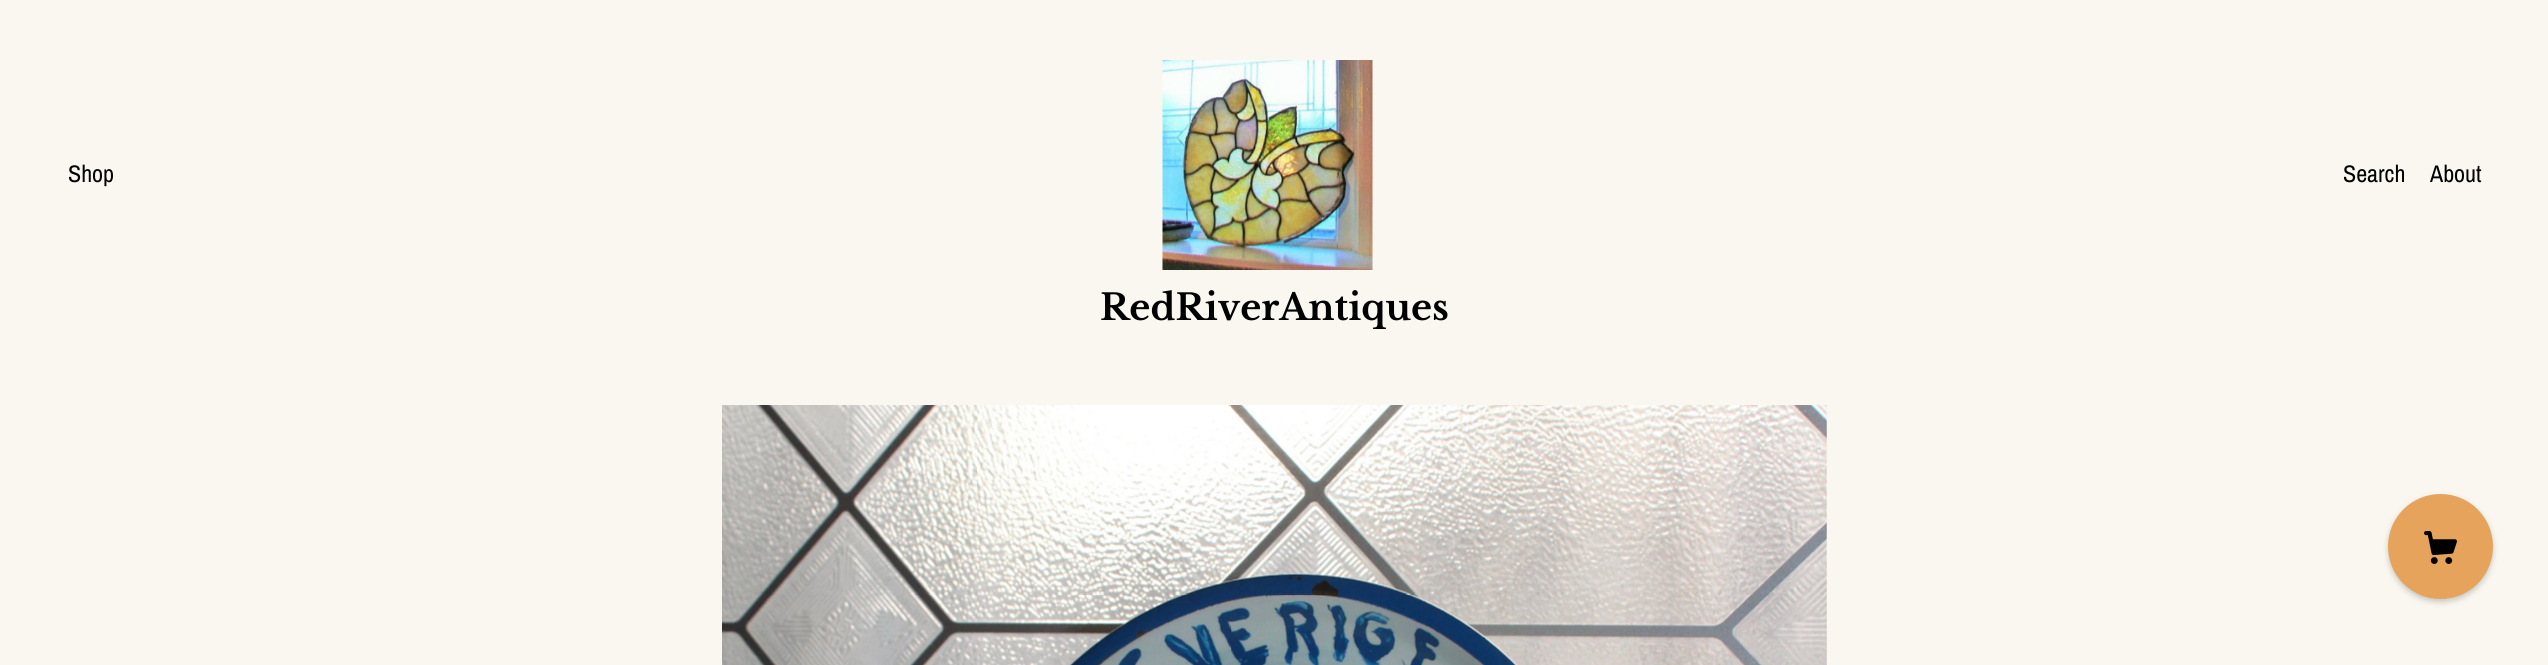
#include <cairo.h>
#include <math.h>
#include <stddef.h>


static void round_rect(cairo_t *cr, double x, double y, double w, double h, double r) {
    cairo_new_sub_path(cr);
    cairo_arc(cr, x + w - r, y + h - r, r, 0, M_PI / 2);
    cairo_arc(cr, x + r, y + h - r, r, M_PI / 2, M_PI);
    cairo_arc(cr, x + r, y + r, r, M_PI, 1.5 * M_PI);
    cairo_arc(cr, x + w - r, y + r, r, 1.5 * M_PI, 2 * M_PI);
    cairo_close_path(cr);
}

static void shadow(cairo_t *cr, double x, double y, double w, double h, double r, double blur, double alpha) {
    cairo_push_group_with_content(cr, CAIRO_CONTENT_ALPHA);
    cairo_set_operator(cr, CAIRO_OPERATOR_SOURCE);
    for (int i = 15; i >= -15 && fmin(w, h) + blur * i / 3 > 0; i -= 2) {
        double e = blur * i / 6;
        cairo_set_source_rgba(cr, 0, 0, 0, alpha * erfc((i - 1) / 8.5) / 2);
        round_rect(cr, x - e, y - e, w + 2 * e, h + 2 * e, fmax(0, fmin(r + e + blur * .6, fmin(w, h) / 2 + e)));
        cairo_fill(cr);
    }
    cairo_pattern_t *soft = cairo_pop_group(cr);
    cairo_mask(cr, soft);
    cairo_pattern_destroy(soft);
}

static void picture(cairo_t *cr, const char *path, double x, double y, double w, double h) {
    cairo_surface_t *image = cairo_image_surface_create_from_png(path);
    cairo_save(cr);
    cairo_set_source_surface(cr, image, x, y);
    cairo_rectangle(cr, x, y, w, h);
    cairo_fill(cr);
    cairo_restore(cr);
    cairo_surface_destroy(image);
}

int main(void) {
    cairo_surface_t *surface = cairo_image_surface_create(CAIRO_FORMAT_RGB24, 2548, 665);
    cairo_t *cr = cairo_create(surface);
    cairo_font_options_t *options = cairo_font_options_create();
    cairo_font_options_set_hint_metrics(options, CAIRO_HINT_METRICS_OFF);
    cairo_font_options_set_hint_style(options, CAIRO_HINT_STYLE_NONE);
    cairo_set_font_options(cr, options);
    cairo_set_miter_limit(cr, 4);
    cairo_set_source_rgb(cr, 0.98, 0.965, 0.941);
    cairo_paint(cr);
    cairo_select_font_face(cr, "Archivo Narrow", CAIRO_FONT_SLANT_NORMAL, CAIRO_FONT_WEIGHT_NORMAL);
    cairo_set_font_size(cr, 24);
    cairo_set_source_rgb(cr, 0, 0, 0);
    cairo_move_to(cr, 68, 182);
    cairo_show_text(cr, "Shop");
    cairo_move_to(cr, 2343, 182);
    cairo_show_text(cr, "Search");
    cairo_move_to(cr, 2430, 182);
    cairo_show_text(cr, "About");
    picture(cr, "img1.png", 1162, 60, 211, 210);
    cairo_select_font_face(cr, "Libre Baskerville", CAIRO_FONT_SLANT_NORMAL, CAIRO_FONT_WEIGHT_BOLD);
    cairo_set_font_size(cr, 36);
    cairo_move_to(cr, 1100, 320);
    cairo_show_text(cr, "RedRiverAntiques");
    picture(cr, "img2.png", 722, 405, 1105, 260);
    cairo_set_source_rgb(cr, 0, 0, 0);
    shadow(cr, 2388, 497, 105, 105, 52.5, 3, 0.2);
    cairo_set_source_rgb(cr, 0.898, 0.639, 0.361);
    cairo_arc(cr, 2440.5, 546.5, 52.5, 0, 2 * M_PI);
    cairo_fill(cr);
    picture(cr, "img3.png", 2424, 531, 33, 33);
    cairo_surface_write_to_png(surface, "page.png");
    cairo_font_options_destroy(options);
    cairo_destroy(cr);
    cairo_surface_destroy(surface);
    return 0;
}
